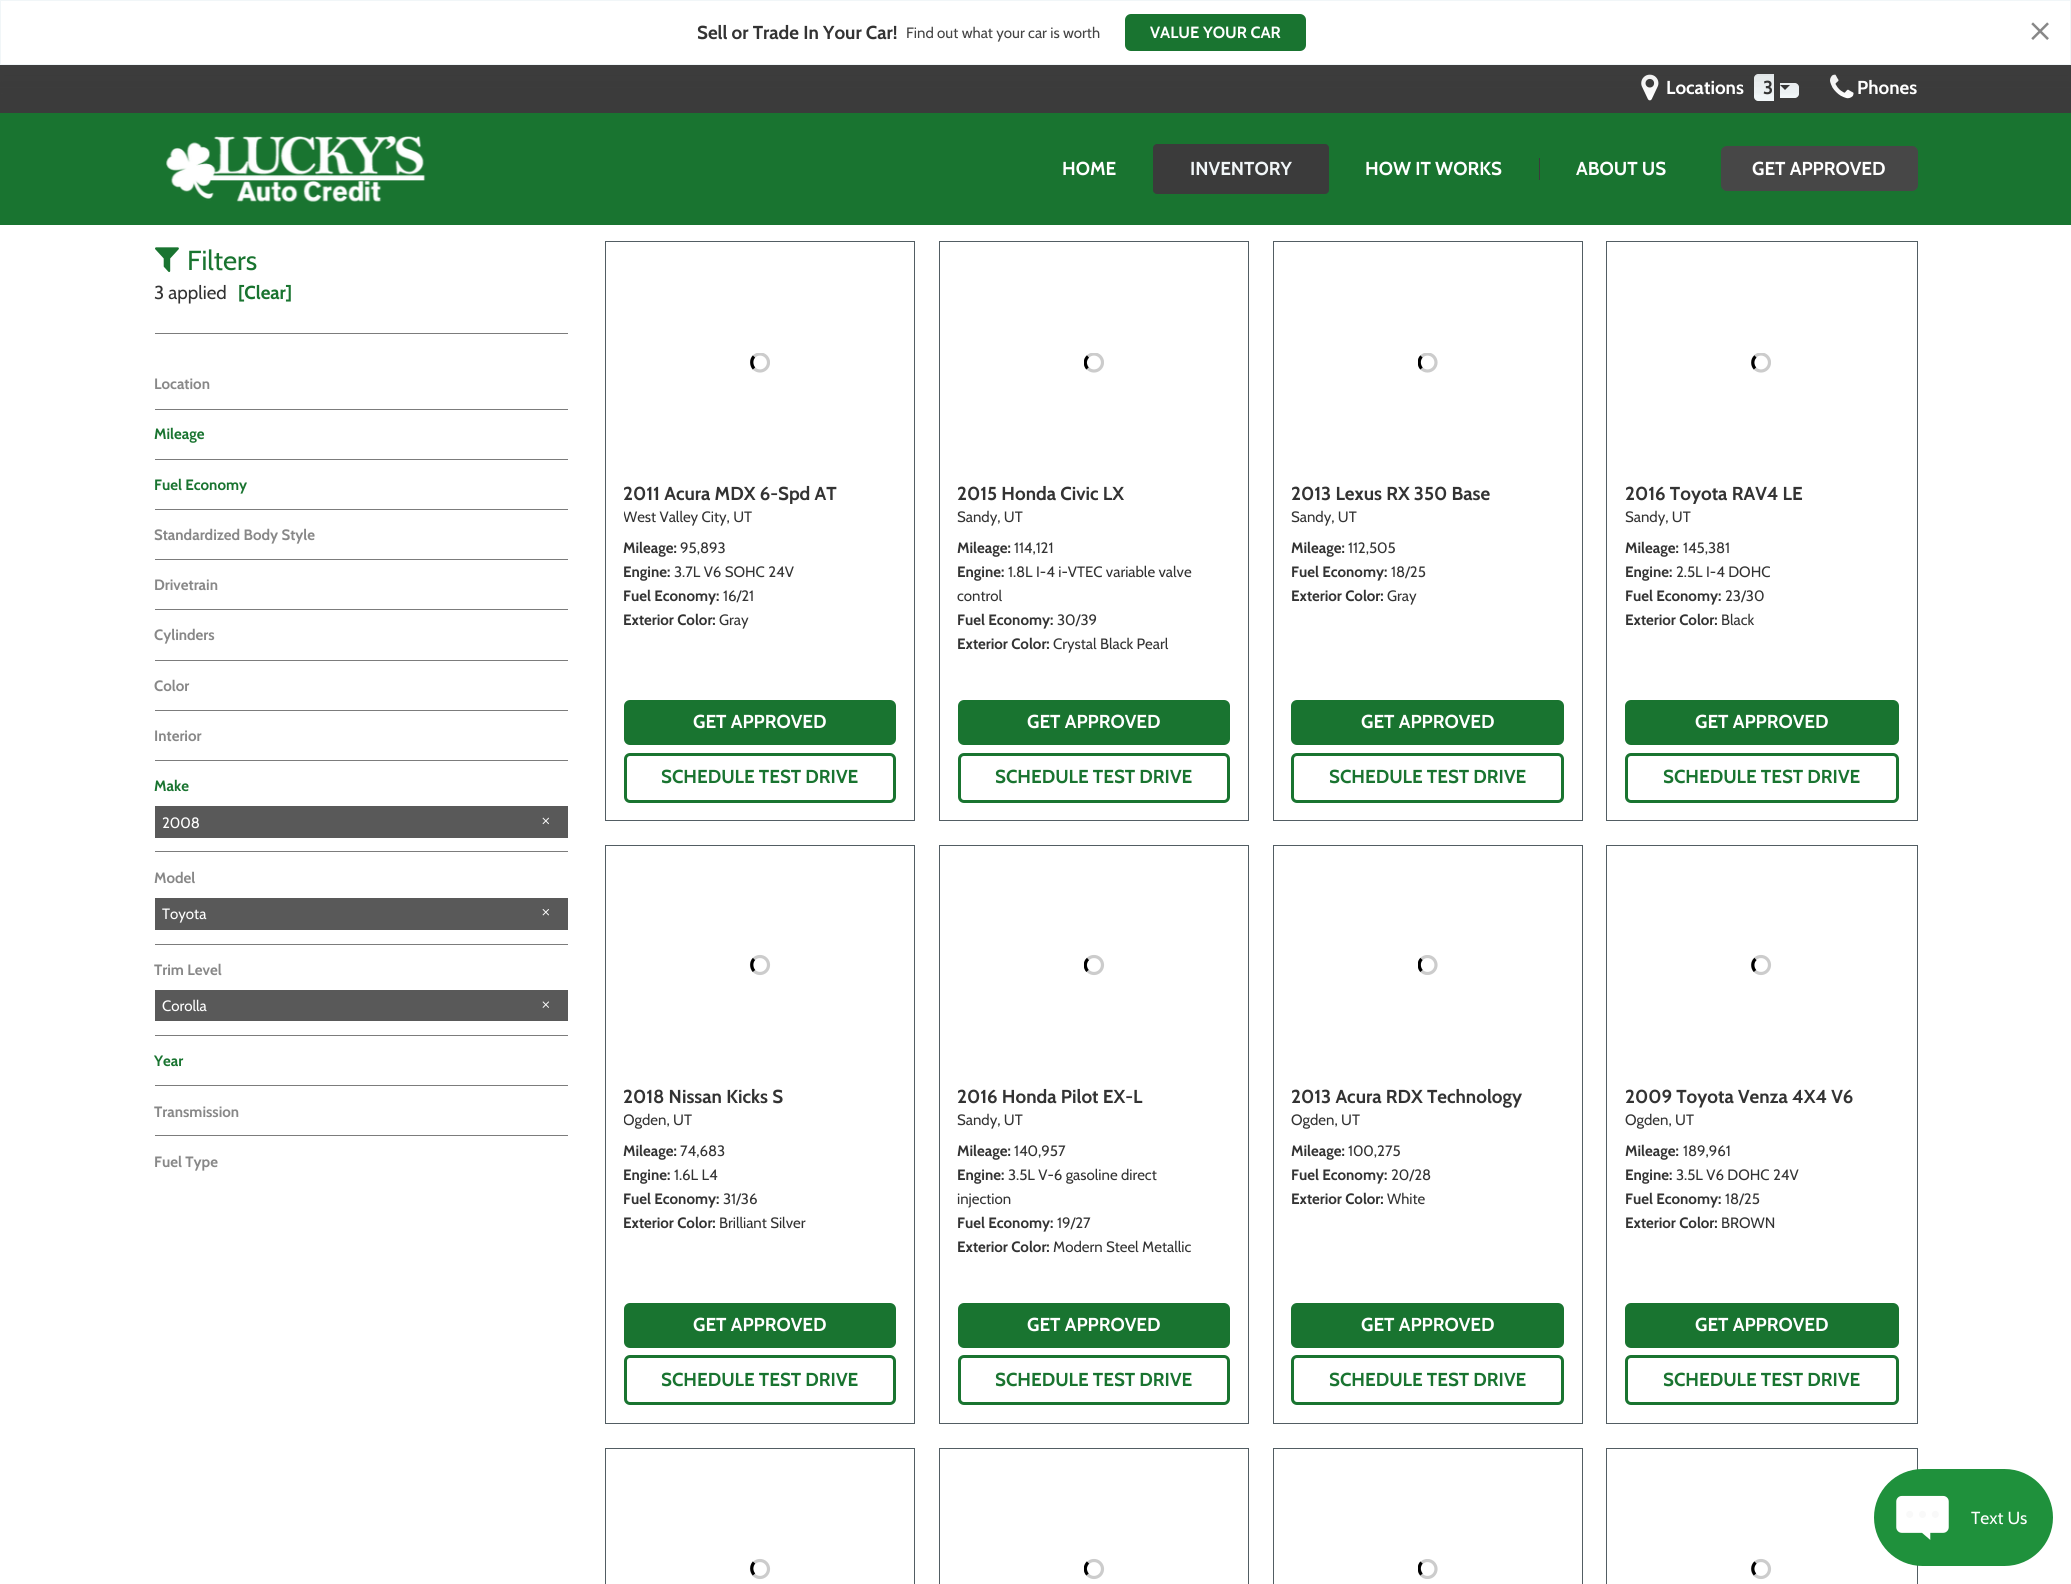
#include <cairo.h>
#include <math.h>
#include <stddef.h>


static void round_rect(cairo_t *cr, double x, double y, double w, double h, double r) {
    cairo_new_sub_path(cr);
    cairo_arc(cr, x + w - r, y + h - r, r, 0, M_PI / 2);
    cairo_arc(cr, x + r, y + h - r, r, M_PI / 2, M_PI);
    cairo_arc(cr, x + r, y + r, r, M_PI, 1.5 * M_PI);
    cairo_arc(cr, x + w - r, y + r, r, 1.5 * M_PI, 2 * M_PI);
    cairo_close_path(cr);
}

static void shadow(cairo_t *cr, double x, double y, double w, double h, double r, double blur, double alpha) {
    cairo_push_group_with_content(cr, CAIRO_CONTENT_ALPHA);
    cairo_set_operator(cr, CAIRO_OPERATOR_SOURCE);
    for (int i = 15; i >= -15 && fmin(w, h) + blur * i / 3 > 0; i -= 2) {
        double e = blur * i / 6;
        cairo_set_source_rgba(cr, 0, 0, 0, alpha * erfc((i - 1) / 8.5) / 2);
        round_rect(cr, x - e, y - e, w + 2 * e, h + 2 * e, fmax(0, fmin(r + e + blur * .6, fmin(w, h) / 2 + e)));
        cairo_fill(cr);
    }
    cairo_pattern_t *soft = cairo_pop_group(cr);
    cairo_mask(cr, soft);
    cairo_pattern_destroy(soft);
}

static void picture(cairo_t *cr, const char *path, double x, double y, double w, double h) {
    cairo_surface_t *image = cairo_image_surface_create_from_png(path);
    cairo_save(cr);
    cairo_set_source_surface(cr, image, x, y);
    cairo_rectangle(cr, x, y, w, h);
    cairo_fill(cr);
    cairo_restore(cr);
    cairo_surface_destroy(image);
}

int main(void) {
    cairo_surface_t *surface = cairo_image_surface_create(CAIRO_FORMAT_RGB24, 2071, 1584);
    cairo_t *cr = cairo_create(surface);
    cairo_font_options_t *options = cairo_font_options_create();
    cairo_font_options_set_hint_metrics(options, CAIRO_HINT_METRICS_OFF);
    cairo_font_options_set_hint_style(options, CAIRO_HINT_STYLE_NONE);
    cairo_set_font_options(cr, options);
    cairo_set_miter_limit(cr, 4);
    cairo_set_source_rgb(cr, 1, 1, 1);
    cairo_paint(cr);
    cairo_set_source_rgb(cr, 0.098, 0.455, 0.188);
    cairo_rectangle(cr, 0, 113, 2071, 112);
    cairo_fill(cr);
    cairo_set_source_rgb(cr, 0.231, 0.231, 0.231);
    cairo_rectangle(cr, 0, 65, 2071, 48);
    cairo_fill(cr);
    picture(cr, "img2.png", 1641, 74, 18, 27);
    cairo_set_source_rgb(cr, 0.945, 0.961, 0.969);
    cairo_new_path(cr);
    cairo_move_to(cr, 1758, 74);
    cairo_line_to(cr, 1774, 74);
    cairo_line_to(cr, 1774, 101);
    cairo_line_to(cr, 1758, 101);
    cairo_curve_to(cr, 1756, 101, 1754, 99, 1754, 97);
    cairo_line_to(cr, 1754, 78);
    cairo_curve_to(cr, 1754, 76, 1756, 74, 1758, 74);
    cairo_close_path(cr);
    cairo_fill(cr);
    cairo_new_path(cr);
    cairo_move_to(cr, 1780, 83);
    cairo_line_to(cr, 1795, 83);
    cairo_curve_to(cr, 1797, 83, 1799, 85, 1799, 87);
    cairo_line_to(cr, 1799, 94);
    cairo_curve_to(cr, 1799, 96, 1797, 98, 1795, 98);
    cairo_line_to(cr, 1780, 98);
    cairo_close_path(cr);
    cairo_fill(cr);
    cairo_set_source_rgb(cr, 0.2, 0.2, 0.2);
    cairo_new_path(cr);
    cairo_move_to(cr, 1780, 85);
    cairo_line_to(cr, 1790, 85);
    cairo_line_to(cr, 1785, 90);
    cairo_close_path(cr);
    cairo_fill(cr);
    picture(cr, "img3.png", 1830, 74, 24, 25);
    cairo_save(cr);
    cairo_rectangle(cr, 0, 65, 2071, 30);
    cairo_clip(cr);
    cairo_set_source_rgb(cr, 0.267, 0.267, 0.267);
    shadow(cr, -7, -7, 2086, 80, 0, 17.5, 0.2);
    cairo_restore(cr);
    cairo_rectangle(cr, 0.5, 0.5, 2070, 64);
    cairo_set_source_rgb(cr, 0.945, 0.961, 0.969);
    cairo_set_line_width(cr, 1);
    cairo_stroke(cr);
    cairo_select_font_face(cr, "Cabin", CAIRO_FONT_SLANT_NORMAL, CAIRO_FONT_WEIGHT_BOLD);
    cairo_set_font_size(cr, 18.75);
    cairo_set_source_rgb(cr, 0.2, 0.2, 0.2);
    cairo_move_to(cr, 697, 39);
    cairo_show_text(cr, "Sell or Trade In Your Car!");
    cairo_select_font_face(cr, "Cabin", CAIRO_FONT_SLANT_NORMAL, CAIRO_FONT_WEIGHT_NORMAL);
    cairo_set_font_size(cr, 15);
    cairo_set_source_rgb(cr, 0.267, 0.267, 0.267);
    cairo_move_to(cr, 906, 38);
    cairo_show_text(cr, "Find out what your car is worth");
    cairo_set_source_rgb(cr, 0.098, 0.455, 0.188);
    round_rect(cr, 1125, 14, 181, 37, 6);
    cairo_fill(cr);
    cairo_select_font_face(cr, "Cabin", CAIRO_FONT_SLANT_NORMAL, CAIRO_FONT_WEIGHT_BOLD);
    cairo_set_font_size(cr, 16.25);
    cairo_set_source_rgb(cr, 1, 1, 1);
    cairo_move_to(cr, 1150, 38);
    cairo_show_text(cr, "VALUE YOUR CAR");
    picture(cr, "img1.png", 2031, 22, 18, 18);
    cairo_set_font_size(cr, 18.75);
    cairo_move_to(cr, 1666, 94);
    cairo_show_text(cr, "Locations");
    cairo_set_source_rgb(cr, 0.2, 0.2, 0.2);
    cairo_move_to(cr, 1763, 94);
    cairo_show_text(cr, "3");
    cairo_set_source_rgb(cr, 1, 1, 1);
    cairo_move_to(cr, 1857, 94);
    cairo_show_text(cr, "Phones");
    picture(cr, "img4.png", 166, 135, 260, 67);
    cairo_move_to(cr, 1062, 175);
    cairo_show_text(cr, "HOME");
    cairo_set_source_rgb(cr, 0.231, 0.231, 0.231);
    round_rect(cr, 1153, 144, 176, 50, 4);
    cairo_fill(cr);
    cairo_set_source_rgb(cr, 0.945, 0.961, 0.969);
    cairo_move_to(cr, 1190, 175);
    cairo_show_text(cr, "INVENTORY");
    cairo_set_source_rgb(cr, 1, 1, 1);
    cairo_move_to(cr, 1365, 175);
    cairo_show_text(cr, "HOW IT WORKS");
    cairo_set_source_rgb(cr, 0.231, 0.231, 0.231);
    cairo_rectangle(cr, 1539, 158, 1, 22);
    cairo_fill(cr);
    cairo_set_source_rgb(cr, 1, 1, 1);
    cairo_move_to(cr, 1576, 175);
    cairo_show_text(cr, "ABOUT US");
    cairo_set_source_rgb(cr, 0.278, 0.278, 0.278);
    round_rect(cr, 1721, 146, 197, 45, 6);
    cairo_fill(cr);
    cairo_set_source_rgb(cr, 1, 1, 1);
    cairo_move_to(cr, 1752, 175);
    cairo_show_text(cr, "GET APPROVED");
    cairo_set_source_rgb(cr, 0.486, 0.486, 0.486);
    cairo_rectangle(cr, 155, 333, 413, 1);
    cairo_fill(cr);
    picture(cr, "img5.png", 155, 247, 24, 26);
    cairo_select_font_face(cr, "Cabin", CAIRO_FONT_SLANT_NORMAL, CAIRO_FONT_WEIGHT_NORMAL);
    cairo_set_font_size(cr, 27.5);
    cairo_set_source_rgb(cr, 0.098, 0.455, 0.188);
    cairo_move_to(cr, 187, 270);
    cairo_show_text(cr, "Filters");
    cairo_set_font_size(cr, 18.75);
    cairo_set_source_rgb(cr, 0.2, 0.2, 0.2);
    cairo_move_to(cr, 154, 299);
    cairo_show_text(cr, "3 applied");
    cairo_select_font_face(cr, "Cabin", CAIRO_FONT_SLANT_NORMAL, CAIRO_FONT_WEIGHT_BOLD);
    cairo_set_source_rgb(cr, 0.098, 0.455, 0.188);
    cairo_move_to(cr, 238, 299);
    cairo_show_text(cr, "[Clear]");
    cairo_set_font_size(cr, 15);
    cairo_set_source_rgb(cr, 0.533, 0.533, 0.533);
    cairo_move_to(cr, 154, 389);
    cairo_show_text(cr, "Location");
    cairo_set_source_rgb(cr, 0.486, 0.486, 0.486);
    cairo_rectangle(cr, 155, 409, 413, 1);
    cairo_fill(cr);
    cairo_set_source_rgb(cr, 0.098, 0.455, 0.188);
    cairo_move_to(cr, 154, 439);
    cairo_show_text(cr, "Mileage");
    cairo_set_source_rgb(cr, 0.486, 0.486, 0.486);
    cairo_rectangle(cr, 155, 459, 413, 1);
    cairo_fill(cr);
    cairo_set_source_rgb(cr, 0.098, 0.455, 0.188);
    cairo_move_to(cr, 154, 490);
    cairo_show_text(cr, "Fuel Economy");
    cairo_set_source_rgb(cr, 0.486, 0.486, 0.486);
    cairo_rectangle(cr, 155, 509, 413, 1);
    cairo_fill(cr);
    cairo_set_source_rgb(cr, 0.533, 0.533, 0.533);
    cairo_move_to(cr, 154, 540);
    cairo_show_text(cr, "Standardized Body Style");
    cairo_set_source_rgb(cr, 0.486, 0.486, 0.486);
    cairo_rectangle(cr, 155, 559, 413, 1);
    cairo_fill(cr);
    cairo_set_source_rgb(cr, 0.533, 0.533, 0.533);
    cairo_move_to(cr, 154, 590);
    cairo_show_text(cr, "Drivetrain");
    cairo_set_source_rgb(cr, 0.486, 0.486, 0.486);
    cairo_rectangle(cr, 155, 609, 413, 1);
    cairo_fill(cr);
    cairo_set_source_rgb(cr, 0.533, 0.533, 0.533);
    cairo_move_to(cr, 154, 640);
    cairo_show_text(cr, "Cylinders");
    cairo_set_source_rgb(cr, 0.486, 0.486, 0.486);
    cairo_rectangle(cr, 155, 660, 413, 1);
    cairo_fill(cr);
    cairo_set_source_rgb(cr, 0.533, 0.533, 0.533);
    cairo_move_to(cr, 154, 691);
    cairo_show_text(cr, "Color");
    cairo_set_source_rgb(cr, 0.486, 0.486, 0.486);
    cairo_rectangle(cr, 155, 710, 413, 1);
    cairo_fill(cr);
    cairo_set_source_rgb(cr, 0.533, 0.533, 0.533);
    cairo_move_to(cr, 154, 741);
    cairo_show_text(cr, "Interior");
    cairo_set_source_rgb(cr, 0.486, 0.486, 0.486);
    cairo_rectangle(cr, 155, 760, 413, 1);
    cairo_fill(cr);
    cairo_set_source_rgb(cr, 0.098, 0.455, 0.188);
    cairo_move_to(cr, 154, 791);
    cairo_show_text(cr, "Make");
    cairo_set_source_rgb(cr, 0.349, 0.349, 0.349);
    cairo_rectangle(cr, 155, 806, 413, 32);
    cairo_fill(cr);
    cairo_select_font_face(cr, "Cabin", CAIRO_FONT_SLANT_NORMAL, CAIRO_FONT_WEIGHT_NORMAL);
    cairo_set_source_rgb(cr, 1, 1, 1);
    cairo_move_to(cr, 162, 828);
    cairo_show_text(cr, "2008");
    picture(cr, "img6.png", 542, 817, 7, 8);
    cairo_set_source_rgb(cr, 0.486, 0.486, 0.486);
    cairo_rectangle(cr, 155, 851, 413, 1);
    cairo_fill(cr);
    cairo_select_font_face(cr, "Cabin", CAIRO_FONT_SLANT_NORMAL, CAIRO_FONT_WEIGHT_BOLD);
    cairo_set_source_rgb(cr, 0.533, 0.533, 0.533);
    cairo_move_to(cr, 154, 883);
    cairo_show_text(cr, "Model");
    cairo_set_source_rgb(cr, 0.349, 0.349, 0.349);
    cairo_rectangle(cr, 155, 898, 413, 32);
    cairo_fill(cr);
    cairo_select_font_face(cr, "Cabin", CAIRO_FONT_SLANT_NORMAL, CAIRO_FONT_WEIGHT_NORMAL);
    cairo_set_source_rgb(cr, 1, 1, 1);
    cairo_move_to(cr, 162, 919);
    cairo_show_text(cr, "Toyota");
    picture(cr, "img7.png", 542, 909, 7, 7);
    cairo_set_source_rgb(cr, 0.486, 0.486, 0.486);
    cairo_rectangle(cr, 155, 944, 413, 1);
    cairo_fill(cr);
    cairo_select_font_face(cr, "Cabin", CAIRO_FONT_SLANT_NORMAL, CAIRO_FONT_WEIGHT_BOLD);
    cairo_set_source_rgb(cr, 0.533, 0.533, 0.533);
    cairo_move_to(cr, 154, 975);
    cairo_show_text(cr, "Trim Level");
    cairo_set_source_rgb(cr, 0.349, 0.349, 0.349);
    cairo_rectangle(cr, 155, 990, 413, 31);
    cairo_fill(cr);
    cairo_select_font_face(cr, "Cabin", CAIRO_FONT_SLANT_NORMAL, CAIRO_FONT_WEIGHT_NORMAL);
    cairo_set_source_rgb(cr, 1, 1, 1);
    cairo_move_to(cr, 162, 1011);
    cairo_show_text(cr, "Corolla");
    picture(cr, "img8.png", 542, 1001, 7, 7);
    cairo_set_source_rgb(cr, 0.486, 0.486, 0.486);
    cairo_rectangle(cr, 155, 1035, 413, 1);
    cairo_fill(cr);
    cairo_select_font_face(cr, "Cabin", CAIRO_FONT_SLANT_NORMAL, CAIRO_FONT_WEIGHT_BOLD);
    cairo_set_source_rgb(cr, 0.098, 0.455, 0.188);
    cairo_move_to(cr, 154, 1066);
    cairo_show_text(cr, "Year");
    cairo_set_source_rgb(cr, 0.486, 0.486, 0.486);
    cairo_rectangle(cr, 155, 1085, 413, 1);
    cairo_fill(cr);
    cairo_set_source_rgb(cr, 0.533, 0.533, 0.533);
    cairo_move_to(cr, 154, 1117);
    cairo_show_text(cr, "Transmission");
    cairo_set_source_rgb(cr, 0.486, 0.486, 0.486);
    cairo_rectangle(cr, 155, 1135, 413, 1);
    cairo_fill(cr);
    cairo_set_source_rgb(cr, 0.533, 0.533, 0.533);
    cairo_move_to(cr, 154, 1167);
    cairo_show_text(cr, "Fuel Type");
    cairo_rectangle(cr, 605.5, 241.5, 309, 579);
    cairo_set_source_rgb(cr, 0.322, 0.365, 0.388);
    cairo_stroke(cr);
    cairo_save(cr);
    cairo_rectangle(cr, 750, 353, 20, 20);
    cairo_clip(cr);
    cairo_arc(cr, 760, 362.5, 8.5, 0, 2 * M_PI);
    cairo_set_source_rgb(cr, 0.8, 0.8, 0.8);
    cairo_set_line_width(cr, 3.2);
    cairo_stroke(cr);
    cairo_restore(cr);
    cairo_new_path(cr);
    cairo_move_to(cr, 754, 368.5);
    cairo_curve_to(cr, 751, 365, 751, 359.5, 754, 356.5);
    cairo_set_source_rgb(cr, 0, 0, 0);
    cairo_set_line_width(cr, 3.2);
    cairo_stroke(cr);
    cairo_save(cr);
    cairo_rectangle(cr, 624, 484, 272, 20);
    cairo_clip(cr);
    cairo_set_font_size(cr, 18.75);
    cairo_set_source_rgb(cr, 0.2, 0.2, 0.2);
    cairo_move_to(cr, 623, 500);
    cairo_show_text(cr, "2011 Acura MDX 6-Spd AT");
    cairo_restore(cr);
    cairo_save(cr);
    cairo_rectangle(cr, 624, 504, 272, 25);
    cairo_clip(cr);
    cairo_select_font_face(cr, "Cabin", CAIRO_FONT_SLANT_NORMAL, CAIRO_FONT_WEIGHT_NORMAL);
    cairo_set_source_rgb(cr, 0.2, 0.2, 0.2);
    cairo_move_to(cr, 623, 522);
    cairo_show_text(cr, "West Valley City, UT");
    cairo_restore(cr);
    cairo_set_source_rgb(cr, 0.2, 0.2, 0.2);
    cairo_move_to(cr, 623, 553);
    cairo_show_text(cr, "Mileage:");
    cairo_select_font_face(cr, "Cabin", CAIRO_FONT_SLANT_NORMAL, CAIRO_FONT_WEIGHT_NORMAL);
    cairo_move_to(cr, 680, 553);
    cairo_show_text(cr, "95,893");
    cairo_select_font_face(cr, "Cabin", CAIRO_FONT_SLANT_NORMAL, CAIRO_FONT_WEIGHT_BOLD);
    cairo_move_to(cr, 623, 577);
    cairo_show_text(cr, "Engine:");
    cairo_select_font_face(cr, "Cabin", CAIRO_FONT_SLANT_NORMAL, CAIRO_FONT_WEIGHT_NORMAL);
    cairo_move_to(cr, 674, 577);
    cairo_show_text(cr, "3.7L V6 SOHC 24V");
    cairo_select_font_face(cr, "Cabin", CAIRO_FONT_SLANT_NORMAL, CAIRO_FONT_WEIGHT_BOLD);
    cairo_move_to(cr, 623, 601);
    cairo_show_text(cr, "Fuel Economy:");
    cairo_select_font_face(cr, "Cabin", CAIRO_FONT_SLANT_NORMAL, CAIRO_FONT_WEIGHT_NORMAL);
    cairo_move_to(cr, 723, 601);
    cairo_show_text(cr, "16/21");
    cairo_select_font_face(cr, "Cabin", CAIRO_FONT_SLANT_NORMAL, CAIRO_FONT_WEIGHT_BOLD);
    cairo_move_to(cr, 623, 625);
    cairo_show_text(cr, "Exterior Color:");
    cairo_select_font_face(cr, "Cabin", CAIRO_FONT_SLANT_NORMAL, CAIRO_FONT_WEIGHT_NORMAL);
    cairo_move_to(cr, 719, 625);
    cairo_show_text(cr, "Gray");
    cairo_set_source_rgb(cr, 0.098, 0.455, 0.188);
    round_rect(cr, 624, 700, 272, 45, 6);
    cairo_fill(cr);
    cairo_select_font_face(cr, "Cabin", CAIRO_FONT_SLANT_NORMAL, CAIRO_FONT_WEIGHT_BOLD);
    cairo_set_font_size(cr, 18.75);
    cairo_set_source_rgb(cr, 1, 1, 1);
    cairo_move_to(cr, 693, 728);
    cairo_show_text(cr, "GET APPROVED");
    round_rect(cr, 625.5, 754.5, 269, 47, 4.5);
    cairo_set_source_rgb(cr, 0.098, 0.455, 0.188);
    cairo_set_line_width(cr, 3);
    cairo_stroke(cr);
    cairo_move_to(cr, 661, 783);
    cairo_show_text(cr, "SCHEDULE TEST DRIVE");
    cairo_rectangle(cr, 939.5, 241.5, 309, 579);
    cairo_set_source_rgb(cr, 0.322, 0.365, 0.388);
    cairo_set_line_width(cr, 1);
    cairo_stroke(cr);
    cairo_save(cr);
    cairo_rectangle(cr, 1084, 353, 20, 20);
    cairo_clip(cr);
    cairo_arc(cr, 1094, 362.5, 8.5, 0, 2 * M_PI);
    cairo_set_source_rgb(cr, 0.8, 0.8, 0.8);
    cairo_set_line_width(cr, 3.2);
    cairo_stroke(cr);
    cairo_new_path(cr);
    cairo_move_to(cr, 1087.5, 368.5);
    cairo_curve_to(cr, 1084.5, 365, 1084.5, 359.5, 1088, 356.5);
    cairo_set_source_rgb(cr, 0, 0, 0);
    cairo_stroke(cr);
    cairo_restore(cr);
    cairo_set_source_rgb(cr, 0.2, 0.2, 0.2);
    cairo_move_to(cr, 957, 500);
    cairo_show_text(cr, "2015 Honda Civic LX");
    cairo_select_font_face(cr, "Cabin", CAIRO_FONT_SLANT_NORMAL, CAIRO_FONT_WEIGHT_NORMAL);
    cairo_set_font_size(cr, 15);
    cairo_move_to(cr, 957, 522);
    cairo_show_text(cr, "Sandy, UT");
    cairo_select_font_face(cr, "Cabin", CAIRO_FONT_SLANT_NORMAL, CAIRO_FONT_WEIGHT_BOLD);
    cairo_move_to(cr, 957, 553);
    cairo_show_text(cr, "Mileage:");
    cairo_select_font_face(cr, "Cabin", CAIRO_FONT_SLANT_NORMAL, CAIRO_FONT_WEIGHT_NORMAL);
    cairo_move_to(cr, 1014, 553);
    cairo_show_text(cr, "114,121");
    cairo_select_font_face(cr, "Cabin", CAIRO_FONT_SLANT_NORMAL, CAIRO_FONT_WEIGHT_BOLD);
    cairo_move_to(cr, 957, 577);
    cairo_show_text(cr, "Engine:");
    cairo_select_font_face(cr, "Cabin", CAIRO_FONT_SLANT_NORMAL, CAIRO_FONT_WEIGHT_NORMAL);
    cairo_move_to(cr, 1008, 577);
    cairo_show_text(cr, "1.8L I-4 i-VTEC variable valve");
    cairo_move_to(cr, 957, 601);
    cairo_show_text(cr, "control");
    cairo_select_font_face(cr, "Cabin", CAIRO_FONT_SLANT_NORMAL, CAIRO_FONT_WEIGHT_BOLD);
    cairo_move_to(cr, 957, 625);
    cairo_show_text(cr, "Fuel Economy:");
    cairo_select_font_face(cr, "Cabin", CAIRO_FONT_SLANT_NORMAL, CAIRO_FONT_WEIGHT_NORMAL);
    cairo_move_to(cr, 1057, 625);
    cairo_show_text(cr, "30/39");
    cairo_select_font_face(cr, "Cabin", CAIRO_FONT_SLANT_NORMAL, CAIRO_FONT_WEIGHT_BOLD);
    cairo_move_to(cr, 957, 649);
    cairo_show_text(cr, "Exterior Color:");
    cairo_select_font_face(cr, "Cabin", CAIRO_FONT_SLANT_NORMAL, CAIRO_FONT_WEIGHT_NORMAL);
    cairo_move_to(cr, 1053, 649);
    cairo_show_text(cr, "Crystal Black Pearl");
    cairo_set_source_rgb(cr, 0.098, 0.455, 0.188);
    round_rect(cr, 958, 700, 272, 45, 6);
    cairo_fill(cr);
    cairo_select_font_face(cr, "Cabin", CAIRO_FONT_SLANT_NORMAL, CAIRO_FONT_WEIGHT_BOLD);
    cairo_set_font_size(cr, 18.75);
    cairo_set_source_rgb(cr, 1, 1, 1);
    cairo_move_to(cr, 1027, 728);
    cairo_show_text(cr, "GET APPROVED");
    round_rect(cr, 959.5, 754.5, 269, 47, 4.5);
    cairo_set_source_rgb(cr, 0.098, 0.455, 0.188);
    cairo_set_line_width(cr, 3);
    cairo_stroke(cr);
    cairo_move_to(cr, 995, 783);
    cairo_show_text(cr, "SCHEDULE TEST DRIVE");
    cairo_rectangle(cr, 1273.5, 241.5, 309, 579);
    cairo_set_source_rgb(cr, 0.322, 0.365, 0.388);
    cairo_set_line_width(cr, 1);
    cairo_stroke(cr);
    cairo_save(cr);
    cairo_rectangle(cr, 1418, 353, 20, 20);
    cairo_clip(cr);
    cairo_arc(cr, 1427.5, 362.5, 8.5, 0, 2 * M_PI);
    cairo_set_source_rgb(cr, 0.8, 0.8, 0.8);
    cairo_set_line_width(cr, 3.2);
    cairo_stroke(cr);
    cairo_new_path(cr);
    cairo_move_to(cr, 1421.5, 368.5);
    cairo_curve_to(cr, 1418.5, 365, 1418.5, 359.5, 1421.5, 356.5);
    cairo_set_source_rgb(cr, 0, 0, 0);
    cairo_stroke(cr);
    cairo_restore(cr);
    cairo_set_source_rgb(cr, 0.2, 0.2, 0.2);
    cairo_move_to(cr, 1291, 500);
    cairo_show_text(cr, "2013 Lexus RX 350 Base");
    cairo_select_font_face(cr, "Cabin", CAIRO_FONT_SLANT_NORMAL, CAIRO_FONT_WEIGHT_NORMAL);
    cairo_set_font_size(cr, 15);
    cairo_move_to(cr, 1291, 522);
    cairo_show_text(cr, "Sandy, UT");
    cairo_select_font_face(cr, "Cabin", CAIRO_FONT_SLANT_NORMAL, CAIRO_FONT_WEIGHT_BOLD);
    cairo_move_to(cr, 1291, 553);
    cairo_show_text(cr, "Mileage:");
    cairo_select_font_face(cr, "Cabin", CAIRO_FONT_SLANT_NORMAL, CAIRO_FONT_WEIGHT_NORMAL);
    cairo_move_to(cr, 1348, 553);
    cairo_show_text(cr, "112,505");
    cairo_select_font_face(cr, "Cabin", CAIRO_FONT_SLANT_NORMAL, CAIRO_FONT_WEIGHT_BOLD);
    cairo_move_to(cr, 1291, 577);
    cairo_show_text(cr, "Fuel Economy:");
    cairo_select_font_face(cr, "Cabin", CAIRO_FONT_SLANT_NORMAL, CAIRO_FONT_WEIGHT_NORMAL);
    cairo_move_to(cr, 1391, 577);
    cairo_show_text(cr, "18/25");
    cairo_select_font_face(cr, "Cabin", CAIRO_FONT_SLANT_NORMAL, CAIRO_FONT_WEIGHT_BOLD);
    cairo_move_to(cr, 1291, 601);
    cairo_show_text(cr, "Exterior Color:");
    cairo_select_font_face(cr, "Cabin", CAIRO_FONT_SLANT_NORMAL, CAIRO_FONT_WEIGHT_NORMAL);
    cairo_move_to(cr, 1387, 601);
    cairo_show_text(cr, "Gray");
    cairo_set_source_rgb(cr, 0.098, 0.455, 0.188);
    round_rect(cr, 1291, 700, 273, 45, 6);
    cairo_fill(cr);
    cairo_select_font_face(cr, "Cabin", CAIRO_FONT_SLANT_NORMAL, CAIRO_FONT_WEIGHT_BOLD);
    cairo_set_font_size(cr, 18.75);
    cairo_set_source_rgb(cr, 1, 1, 1);
    cairo_move_to(cr, 1361, 728);
    cairo_show_text(cr, "GET APPROVED");
    round_rect(cr, 1292.5, 754.5, 270, 47, 4.5);
    cairo_set_source_rgb(cr, 0.098, 0.455, 0.188);
    cairo_set_line_width(cr, 3);
    cairo_stroke(cr);
    cairo_move_to(cr, 1329, 783);
    cairo_show_text(cr, "SCHEDULE TEST DRIVE");
    cairo_rectangle(cr, 1606.5, 241.5, 311, 579);
    cairo_set_source_rgb(cr, 0.322, 0.365, 0.388);
    cairo_set_line_width(cr, 1);
    cairo_stroke(cr);
    cairo_save(cr);
    cairo_rectangle(cr, 1751, 353, 20, 20);
    cairo_clip(cr);
    cairo_arc(cr, 1761, 362.5, 8.5, 0, 2 * M_PI);
    cairo_set_source_rgb(cr, 0.8, 0.8, 0.8);
    cairo_set_line_width(cr, 3.2);
    cairo_stroke(cr);
    cairo_restore(cr);
    cairo_new_path(cr);
    cairo_move_to(cr, 1755, 368.5);
    cairo_curve_to(cr, 1752, 365, 1752, 359.5, 1755.5, 356.5);
    cairo_set_source_rgb(cr, 0, 0, 0);
    cairo_set_line_width(cr, 3.2);
    cairo_stroke(cr);
    cairo_save(cr);
    cairo_rectangle(cr, 1625, 484, 274, 20);
    cairo_clip(cr);
    cairo_set_source_rgb(cr, 0.2, 0.2, 0.2);
    cairo_move_to(cr, 1625, 500);
    cairo_show_text(cr, "2016 Toyota RAV4 LE");
    cairo_restore(cr);
    cairo_select_font_face(cr, "Cabin", CAIRO_FONT_SLANT_NORMAL, CAIRO_FONT_WEIGHT_NORMAL);
    cairo_set_font_size(cr, 15);
    cairo_set_source_rgb(cr, 0.2, 0.2, 0.2);
    cairo_move_to(cr, 1625, 522);
    cairo_show_text(cr, "Sandy, UT");
    cairo_select_font_face(cr, "Cabin", CAIRO_FONT_SLANT_NORMAL, CAIRO_FONT_WEIGHT_BOLD);
    cairo_move_to(cr, 1625, 553);
    cairo_show_text(cr, "Mileage:");
    cairo_select_font_face(cr, "Cabin", CAIRO_FONT_SLANT_NORMAL, CAIRO_FONT_WEIGHT_NORMAL);
    cairo_move_to(cr, 1683, 553);
    cairo_show_text(cr, "145,381");
    cairo_select_font_face(cr, "Cabin", CAIRO_FONT_SLANT_NORMAL, CAIRO_FONT_WEIGHT_BOLD);
    cairo_move_to(cr, 1625, 577);
    cairo_show_text(cr, "Engine:");
    cairo_select_font_face(cr, "Cabin", CAIRO_FONT_SLANT_NORMAL, CAIRO_FONT_WEIGHT_NORMAL);
    cairo_move_to(cr, 1676, 577);
    cairo_show_text(cr, "2.5L I-4 DOHC");
    cairo_select_font_face(cr, "Cabin", CAIRO_FONT_SLANT_NORMAL, CAIRO_FONT_WEIGHT_BOLD);
    cairo_move_to(cr, 1625, 601);
    cairo_show_text(cr, "Fuel Economy:");
    cairo_select_font_face(cr, "Cabin", CAIRO_FONT_SLANT_NORMAL, CAIRO_FONT_WEIGHT_NORMAL);
    cairo_move_to(cr, 1725, 601);
    cairo_show_text(cr, "23/30");
    cairo_select_font_face(cr, "Cabin", CAIRO_FONT_SLANT_NORMAL, CAIRO_FONT_WEIGHT_BOLD);
    cairo_move_to(cr, 1625, 625);
    cairo_show_text(cr, "Exterior Color:");
    cairo_select_font_face(cr, "Cabin", CAIRO_FONT_SLANT_NORMAL, CAIRO_FONT_WEIGHT_NORMAL);
    cairo_move_to(cr, 1721, 625);
    cairo_show_text(cr, "Black");
    cairo_set_source_rgb(cr, 0.098, 0.455, 0.188);
    round_rect(cr, 1625, 700, 274, 45, 6);
    cairo_fill(cr);
    cairo_select_font_face(cr, "Cabin", CAIRO_FONT_SLANT_NORMAL, CAIRO_FONT_WEIGHT_BOLD);
    cairo_set_font_size(cr, 18.75);
    cairo_set_source_rgb(cr, 1, 1, 1);
    cairo_move_to(cr, 1695, 728);
    cairo_show_text(cr, "GET APPROVED");
    round_rect(cr, 1626.5, 754.5, 271, 47, 4.5);
    cairo_set_source_rgb(cr, 0.098, 0.455, 0.188);
    cairo_set_line_width(cr, 3);
    cairo_stroke(cr);
    cairo_move_to(cr, 1663, 783);
    cairo_show_text(cr, "SCHEDULE TEST DRIVE");
    cairo_rectangle(cr, 605.5, 845.5, 309, 578);
    cairo_set_source_rgb(cr, 0.322, 0.365, 0.388);
    cairo_set_line_width(cr, 1);
    cairo_stroke(cr);
    cairo_arc(cr, 760, 965, 8.5, 0, 2 * M_PI);
    cairo_set_source_rgb(cr, 0.8, 0.8, 0.8);
    cairo_set_line_width(cr, 3.2);
    cairo_stroke(cr);
    cairo_new_path(cr);
    cairo_move_to(cr, 754, 971);
    cairo_curve_to(cr, 751, 967.5, 751, 962, 754, 959);
    cairo_set_source_rgb(cr, 0, 0, 0);
    cairo_stroke(cr);
    cairo_set_source_rgb(cr, 0.2, 0.2, 0.2);
    cairo_move_to(cr, 623, 1103);
    cairo_show_text(cr, "2018 Nissan Kicks S");
    cairo_save(cr);
    cairo_rectangle(cr, 624, 1108, 272, 23);
    cairo_clip(cr);
    cairo_select_font_face(cr, "Cabin", CAIRO_FONT_SLANT_NORMAL, CAIRO_FONT_WEIGHT_NORMAL);
    cairo_set_font_size(cr, 15);
    cairo_move_to(cr, 623, 1125);
    cairo_show_text(cr, "Ogden, UT");
    cairo_restore(cr);
    cairo_set_font_size(cr, 15);
    cairo_move_to(cr, 623, 1156);
    cairo_show_text(cr, "Mileage:");
    cairo_select_font_face(cr, "Cabin", CAIRO_FONT_SLANT_NORMAL, CAIRO_FONT_WEIGHT_NORMAL);
    cairo_move_to(cr, 680, 1156);
    cairo_show_text(cr, "74,683");
    cairo_select_font_face(cr, "Cabin", CAIRO_FONT_SLANT_NORMAL, CAIRO_FONT_WEIGHT_BOLD);
    cairo_move_to(cr, 623, 1180);
    cairo_show_text(cr, "Engine:");
    cairo_select_font_face(cr, "Cabin", CAIRO_FONT_SLANT_NORMAL, CAIRO_FONT_WEIGHT_NORMAL);
    cairo_move_to(cr, 674, 1180);
    cairo_show_text(cr, "1.6L L4");
    cairo_select_font_face(cr, "Cabin", CAIRO_FONT_SLANT_NORMAL, CAIRO_FONT_WEIGHT_BOLD);
    cairo_move_to(cr, 623, 1204);
    cairo_show_text(cr, "Fuel Economy:");
    cairo_select_font_face(cr, "Cabin", CAIRO_FONT_SLANT_NORMAL, CAIRO_FONT_WEIGHT_NORMAL);
    cairo_move_to(cr, 723, 1204);
    cairo_show_text(cr, "31/36");
    cairo_select_font_face(cr, "Cabin", CAIRO_FONT_SLANT_NORMAL, CAIRO_FONT_WEIGHT_BOLD);
    cairo_move_to(cr, 623, 1228);
    cairo_show_text(cr, "Exterior Color:");
    cairo_select_font_face(cr, "Cabin", CAIRO_FONT_SLANT_NORMAL, CAIRO_FONT_WEIGHT_NORMAL);
    cairo_move_to(cr, 719, 1228);
    cairo_show_text(cr, "Brilliant Silver");
    cairo_set_source_rgb(cr, 0.098, 0.455, 0.188);
    round_rect(cr, 624, 1303, 272, 45, 6);
    cairo_fill(cr);
    cairo_select_font_face(cr, "Cabin", CAIRO_FONT_SLANT_NORMAL, CAIRO_FONT_WEIGHT_BOLD);
    cairo_set_font_size(cr, 18.75);
    cairo_set_source_rgb(cr, 1, 1, 1);
    cairo_move_to(cr, 693, 1331);
    cairo_show_text(cr, "GET APPROVED");
    round_rect(cr, 625.5, 1356.5, 269, 47, 4.5);
    cairo_set_source_rgb(cr, 0.098, 0.455, 0.188);
    cairo_set_line_width(cr, 3);
    cairo_stroke(cr);
    cairo_move_to(cr, 661, 1386);
    cairo_show_text(cr, "SCHEDULE TEST DRIVE");
    cairo_rectangle(cr, 939.5, 845.5, 309, 578);
    cairo_set_source_rgb(cr, 0.322, 0.365, 0.388);
    cairo_set_line_width(cr, 1);
    cairo_stroke(cr);
    cairo_arc(cr, 1094, 965, 8.5, 0, 2 * M_PI);
    cairo_set_source_rgb(cr, 0.8, 0.8, 0.8);
    cairo_set_line_width(cr, 3.2);
    cairo_stroke(cr);
    cairo_save(cr);
    cairo_rectangle(cr, 1084, 955, 20, 20);
    cairo_clip(cr);
    cairo_new_path(cr);
    cairo_move_to(cr, 1087.5, 971);
    cairo_curve_to(cr, 1084.5, 967.5, 1084.5, 962, 1088, 959);
    cairo_set_source_rgb(cr, 0, 0, 0);
    cairo_stroke(cr);
    cairo_restore(cr);
    cairo_set_source_rgb(cr, 0.2, 0.2, 0.2);
    cairo_move_to(cr, 957, 1103);
    cairo_show_text(cr, "2016 Honda Pilot EX-L");
    cairo_select_font_face(cr, "Cabin", CAIRO_FONT_SLANT_NORMAL, CAIRO_FONT_WEIGHT_NORMAL);
    cairo_set_font_size(cr, 15);
    cairo_move_to(cr, 957, 1125);
    cairo_show_text(cr, "Sandy, UT");
    cairo_select_font_face(cr, "Cabin", CAIRO_FONT_SLANT_NORMAL, CAIRO_FONT_WEIGHT_BOLD);
    cairo_move_to(cr, 957, 1156);
    cairo_show_text(cr, "Mileage:");
    cairo_select_font_face(cr, "Cabin", CAIRO_FONT_SLANT_NORMAL, CAIRO_FONT_WEIGHT_NORMAL);
    cairo_move_to(cr, 1014, 1156);
    cairo_show_text(cr, "140,957");
    cairo_select_font_face(cr, "Cabin", CAIRO_FONT_SLANT_NORMAL, CAIRO_FONT_WEIGHT_BOLD);
    cairo_move_to(cr, 957, 1180);
    cairo_show_text(cr, "Engine:");
    cairo_select_font_face(cr, "Cabin", CAIRO_FONT_SLANT_NORMAL, CAIRO_FONT_WEIGHT_NORMAL);
    cairo_move_to(cr, 1008, 1180);
    cairo_show_text(cr, "3.5L V-6 gasoline direct");
    cairo_move_to(cr, 957, 1204);
    cairo_show_text(cr, "injection");
    cairo_select_font_face(cr, "Cabin", CAIRO_FONT_SLANT_NORMAL, CAIRO_FONT_WEIGHT_BOLD);
    cairo_move_to(cr, 957, 1228);
    cairo_show_text(cr, "Fuel Economy:");
    cairo_select_font_face(cr, "Cabin", CAIRO_FONT_SLANT_NORMAL, CAIRO_FONT_WEIGHT_NORMAL);
    cairo_move_to(cr, 1057, 1228);
    cairo_show_text(cr, "19/27");
    cairo_select_font_face(cr, "Cabin", CAIRO_FONT_SLANT_NORMAL, CAIRO_FONT_WEIGHT_BOLD);
    cairo_move_to(cr, 957, 1252);
    cairo_show_text(cr, "Exterior Color:");
    cairo_select_font_face(cr, "Cabin", CAIRO_FONT_SLANT_NORMAL, CAIRO_FONT_WEIGHT_NORMAL);
    cairo_move_to(cr, 1053, 1252);
    cairo_show_text(cr, "Modern Steel Metallic");
    cairo_set_source_rgb(cr, 0.098, 0.455, 0.188);
    round_rect(cr, 958, 1303, 272, 45, 6);
    cairo_fill(cr);
    cairo_select_font_face(cr, "Cabin", CAIRO_FONT_SLANT_NORMAL, CAIRO_FONT_WEIGHT_BOLD);
    cairo_set_font_size(cr, 18.75);
    cairo_set_source_rgb(cr, 1, 1, 1);
    cairo_move_to(cr, 1027, 1331);
    cairo_show_text(cr, "GET APPROVED");
    round_rect(cr, 959.5, 1356.5, 269, 47, 4.5);
    cairo_set_source_rgb(cr, 0.098, 0.455, 0.188);
    cairo_set_line_width(cr, 3);
    cairo_stroke(cr);
    cairo_move_to(cr, 995, 1386);
    cairo_show_text(cr, "SCHEDULE TEST DRIVE");
    cairo_rectangle(cr, 1273.5, 845.5, 309, 578);
    cairo_set_source_rgb(cr, 0.322, 0.365, 0.388);
    cairo_set_line_width(cr, 1);
    cairo_stroke(cr);
    cairo_save(cr);
    cairo_rectangle(cr, 1418, 955, 20, 20);
    cairo_clip(cr);
    cairo_arc(cr, 1427.5, 965, 8.5, 0, 2 * M_PI);
    cairo_set_source_rgb(cr, 0.8, 0.8, 0.8);
    cairo_set_line_width(cr, 3.2);
    cairo_stroke(cr);
    cairo_new_path(cr);
    cairo_move_to(cr, 1421.5, 971);
    cairo_curve_to(cr, 1418.5, 967.5, 1418.5, 962, 1421.5, 959);
    cairo_set_source_rgb(cr, 0, 0, 0);
    cairo_stroke(cr);
    cairo_restore(cr);
    cairo_set_source_rgb(cr, 0.2, 0.2, 0.2);
    cairo_move_to(cr, 1291, 1103);
    cairo_show_text(cr, "2013 Acura RDX Technology");
    cairo_select_font_face(cr, "Cabin", CAIRO_FONT_SLANT_NORMAL, CAIRO_FONT_WEIGHT_NORMAL);
    cairo_set_font_size(cr, 15);
    cairo_move_to(cr, 1291, 1125);
    cairo_show_text(cr, "Ogden, UT");
    cairo_select_font_face(cr, "Cabin", CAIRO_FONT_SLANT_NORMAL, CAIRO_FONT_WEIGHT_BOLD);
    cairo_move_to(cr, 1291, 1156);
    cairo_show_text(cr, "Mileage:");
    cairo_select_font_face(cr, "Cabin", CAIRO_FONT_SLANT_NORMAL, CAIRO_FONT_WEIGHT_NORMAL);
    cairo_move_to(cr, 1348, 1156);
    cairo_show_text(cr, "100,275");
    cairo_select_font_face(cr, "Cabin", CAIRO_FONT_SLANT_NORMAL, CAIRO_FONT_WEIGHT_BOLD);
    cairo_move_to(cr, 1291, 1180);
    cairo_show_text(cr, "Fuel Economy:");
    cairo_select_font_face(cr, "Cabin", CAIRO_FONT_SLANT_NORMAL, CAIRO_FONT_WEIGHT_NORMAL);
    cairo_move_to(cr, 1391, 1180);
    cairo_show_text(cr, "20/28");
    cairo_select_font_face(cr, "Cabin", CAIRO_FONT_SLANT_NORMAL, CAIRO_FONT_WEIGHT_BOLD);
    cairo_move_to(cr, 1291, 1204);
    cairo_show_text(cr, "Exterior Color:");
    cairo_select_font_face(cr, "Cabin", CAIRO_FONT_SLANT_NORMAL, CAIRO_FONT_WEIGHT_NORMAL);
    cairo_move_to(cr, 1387, 1204);
    cairo_show_text(cr, "White");
    cairo_set_source_rgb(cr, 0.098, 0.455, 0.188);
    round_rect(cr, 1291, 1303, 273, 45, 6);
    cairo_fill(cr);
    cairo_select_font_face(cr, "Cabin", CAIRO_FONT_SLANT_NORMAL, CAIRO_FONT_WEIGHT_BOLD);
    cairo_set_font_size(cr, 18.75);
    cairo_set_source_rgb(cr, 1, 1, 1);
    cairo_move_to(cr, 1361, 1331);
    cairo_show_text(cr, "GET APPROVED");
    round_rect(cr, 1292.5, 1356.5, 270, 47, 4.5);
    cairo_set_source_rgb(cr, 0.098, 0.455, 0.188);
    cairo_set_line_width(cr, 3);
    cairo_stroke(cr);
    cairo_move_to(cr, 1329, 1386);
    cairo_show_text(cr, "SCHEDULE TEST DRIVE");
    cairo_rectangle(cr, 1606.5, 845.5, 311, 578);
    cairo_set_source_rgb(cr, 0.322, 0.365, 0.388);
    cairo_set_line_width(cr, 1);
    cairo_stroke(cr);
    cairo_arc(cr, 1761, 965, 8.5, 0, 2 * M_PI);
    cairo_set_source_rgb(cr, 0.8, 0.8, 0.8);
    cairo_set_line_width(cr, 3.2);
    cairo_stroke(cr);
    cairo_new_path(cr);
    cairo_move_to(cr, 1755, 971);
    cairo_curve_to(cr, 1752, 967.5, 1752, 962, 1755.5, 959);
    cairo_set_source_rgb(cr, 0, 0, 0);
    cairo_stroke(cr);
    cairo_set_source_rgb(cr, 0.2, 0.2, 0.2);
    cairo_move_to(cr, 1625, 1103);
    cairo_show_text(cr, "2009 Toyota Venza 4X4 V6");
    cairo_select_font_face(cr, "Cabin", CAIRO_FONT_SLANT_NORMAL, CAIRO_FONT_WEIGHT_NORMAL);
    cairo_set_font_size(cr, 15);
    cairo_move_to(cr, 1625, 1125);
    cairo_show_text(cr, "Ogden, UT");
    cairo_select_font_face(cr, "Cabin", CAIRO_FONT_SLANT_NORMAL, CAIRO_FONT_WEIGHT_BOLD);
    cairo_move_to(cr, 1625, 1156);
    cairo_show_text(cr, "Mileage:");
    cairo_select_font_face(cr, "Cabin", CAIRO_FONT_SLANT_NORMAL, CAIRO_FONT_WEIGHT_NORMAL);
    cairo_move_to(cr, 1683, 1156);
    cairo_show_text(cr, "189,961");
    cairo_select_font_face(cr, "Cabin", CAIRO_FONT_SLANT_NORMAL, CAIRO_FONT_WEIGHT_BOLD);
    cairo_move_to(cr, 1625, 1180);
    cairo_show_text(cr, "Engine:");
    cairo_select_font_face(cr, "Cabin", CAIRO_FONT_SLANT_NORMAL, CAIRO_FONT_WEIGHT_NORMAL);
    cairo_move_to(cr, 1676, 1180);
    cairo_show_text(cr, "3.5L V6 DOHC 24V");
    cairo_select_font_face(cr, "Cabin", CAIRO_FONT_SLANT_NORMAL, CAIRO_FONT_WEIGHT_BOLD);
    cairo_move_to(cr, 1625, 1204);
    cairo_show_text(cr, "Fuel Economy:");
    cairo_select_font_face(cr, "Cabin", CAIRO_FONT_SLANT_NORMAL, CAIRO_FONT_WEIGHT_NORMAL);
    cairo_move_to(cr, 1725, 1204);
    cairo_show_text(cr, "18/25");
    cairo_select_font_face(cr, "Cabin", CAIRO_FONT_SLANT_NORMAL, CAIRO_FONT_WEIGHT_BOLD);
    cairo_move_to(cr, 1625, 1228);
    cairo_show_text(cr, "Exterior Color:");
    cairo_select_font_face(cr, "Cabin", CAIRO_FONT_SLANT_NORMAL, CAIRO_FONT_WEIGHT_NORMAL);
    cairo_move_to(cr, 1721, 1228);
    cairo_show_text(cr, "BROWN");
    cairo_set_source_rgb(cr, 0.098, 0.455, 0.188);
    round_rect(cr, 1625, 1303, 274, 45, 6);
    cairo_fill(cr);
    cairo_select_font_face(cr, "Cabin", CAIRO_FONT_SLANT_NORMAL, CAIRO_FONT_WEIGHT_BOLD);
    cairo_set_font_size(cr, 18.75);
    cairo_set_source_rgb(cr, 1, 1, 1);
    cairo_move_to(cr, 1695, 1331);
    cairo_show_text(cr, "GET APPROVED");
    round_rect(cr, 1626.5, 1356.5, 271, 47, 4.5);
    cairo_set_source_rgb(cr, 0.098, 0.455, 0.188);
    cairo_set_line_width(cr, 3);
    cairo_stroke(cr);
    cairo_move_to(cr, 1663, 1386);
    cairo_show_text(cr, "SCHEDULE TEST DRIVE");
    cairo_rectangle(cr, 605.5, 1448.5, 309, 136);
    cairo_set_source_rgb(cr, 0.322, 0.365, 0.388);
    cairo_set_line_width(cr, 1);
    cairo_stroke(cr);
    cairo_arc(cr, 760, 1569, 8.5, 0, 2 * M_PI);
    cairo_set_source_rgb(cr, 0.8, 0.8, 0.8);
    cairo_set_line_width(cr, 3.2);
    cairo_stroke(cr);
    cairo_new_path(cr);
    cairo_move_to(cr, 754, 1574.5);
    cairo_curve_to(cr, 751, 1571, 751, 1566, 754, 1562.5);
    cairo_set_source_rgb(cr, 0, 0, 0);
    cairo_stroke(cr);
    cairo_rectangle(cr, 939.5, 1448.5, 309, 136);
    cairo_set_source_rgb(cr, 0.322, 0.365, 0.388);
    cairo_set_line_width(cr, 1);
    cairo_stroke(cr);
    cairo_arc(cr, 1094, 1569, 8.5, 0, 2 * M_PI);
    cairo_set_source_rgb(cr, 0.8, 0.8, 0.8);
    cairo_set_line_width(cr, 3.2);
    cairo_stroke(cr);
    cairo_save(cr);
    cairo_rectangle(cr, 1084, 1559, 20, 20);
    cairo_clip(cr);
    cairo_new_path(cr);
    cairo_move_to(cr, 1087.5, 1574.5);
    cairo_curve_to(cr, 1084.5, 1571, 1084.5, 1566, 1088, 1562.5);
    cairo_set_source_rgb(cr, 0, 0, 0);
    cairo_stroke(cr);
    cairo_restore(cr);
    cairo_rectangle(cr, 1273.5, 1448.5, 309, 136);
    cairo_set_source_rgb(cr, 0.322, 0.365, 0.388);
    cairo_set_line_width(cr, 1);
    cairo_stroke(cr);
    cairo_save(cr);
    cairo_rectangle(cr, 1418, 1559, 20, 20);
    cairo_clip(cr);
    cairo_arc(cr, 1427.5, 1569, 8.5, 0, 2 * M_PI);
    cairo_set_source_rgb(cr, 0.8, 0.8, 0.8);
    cairo_set_line_width(cr, 3.2);
    cairo_stroke(cr);
    cairo_new_path(cr);
    cairo_move_to(cr, 1421.5, 1574.5);
    cairo_curve_to(cr, 1418.5, 1571, 1418.5, 1566, 1421.5, 1562.5);
    cairo_set_source_rgb(cr, 0, 0, 0);
    cairo_stroke(cr);
    cairo_restore(cr);
    cairo_rectangle(cr, 1606.5, 1448.5, 311, 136);
    cairo_stroke(cr);
    cairo_arc(cr, 1761, 1569, 8.5, 0, 2 * M_PI);
    cairo_set_source_rgb(cr, 0.8, 0.8, 0.8);
    cairo_set_line_width(cr, 3.2);
    cairo_stroke(cr);
    cairo_new_path(cr);
    cairo_move_to(cr, 1755, 1574.5);
    cairo_curve_to(cr, 1752, 1571, 1752, 1566, 1755.5, 1562.5);
    cairo_set_source_rgb(cr, 0, 0, 0);
    cairo_stroke(cr);
    cairo_set_source_rgb(cr, 0.122, 0.569, 0.235);
    round_rect(cr, 1874, 1469, 179, 97, 48.5);
    cairo_fill(cr);
    cairo_set_source_rgb(cr, 0.976, 0.976, 0.976);
    cairo_rectangle(cr, 1906, 1510, 8, 8);
    cairo_fill(cr);
    cairo_rectangle(cr, 1918, 1510, 9, 8);
    cairo_fill(cr);
    cairo_rectangle(cr, 1931, 1510, 8, 8);
    cairo_fill(cr);
    picture(cr, "img9.png", 1896, 1495, 53, 45);
    cairo_select_font_face(cr, "Cabin", CAIRO_FONT_SLANT_NORMAL, CAIRO_FONT_WEIGHT_NORMAL);
    cairo_set_font_size(cr, 17.5);
    cairo_set_source_rgb(cr, 1, 1, 1);
    cairo_move_to(cr, 1971, 1524);
    cairo_show_text(cr, "Text Us");
    cairo_surface_write_to_png(surface, "page.png");
    cairo_font_options_destroy(options);
    cairo_destroy(cr);
    cairo_surface_destroy(surface);
    return 0;
}
